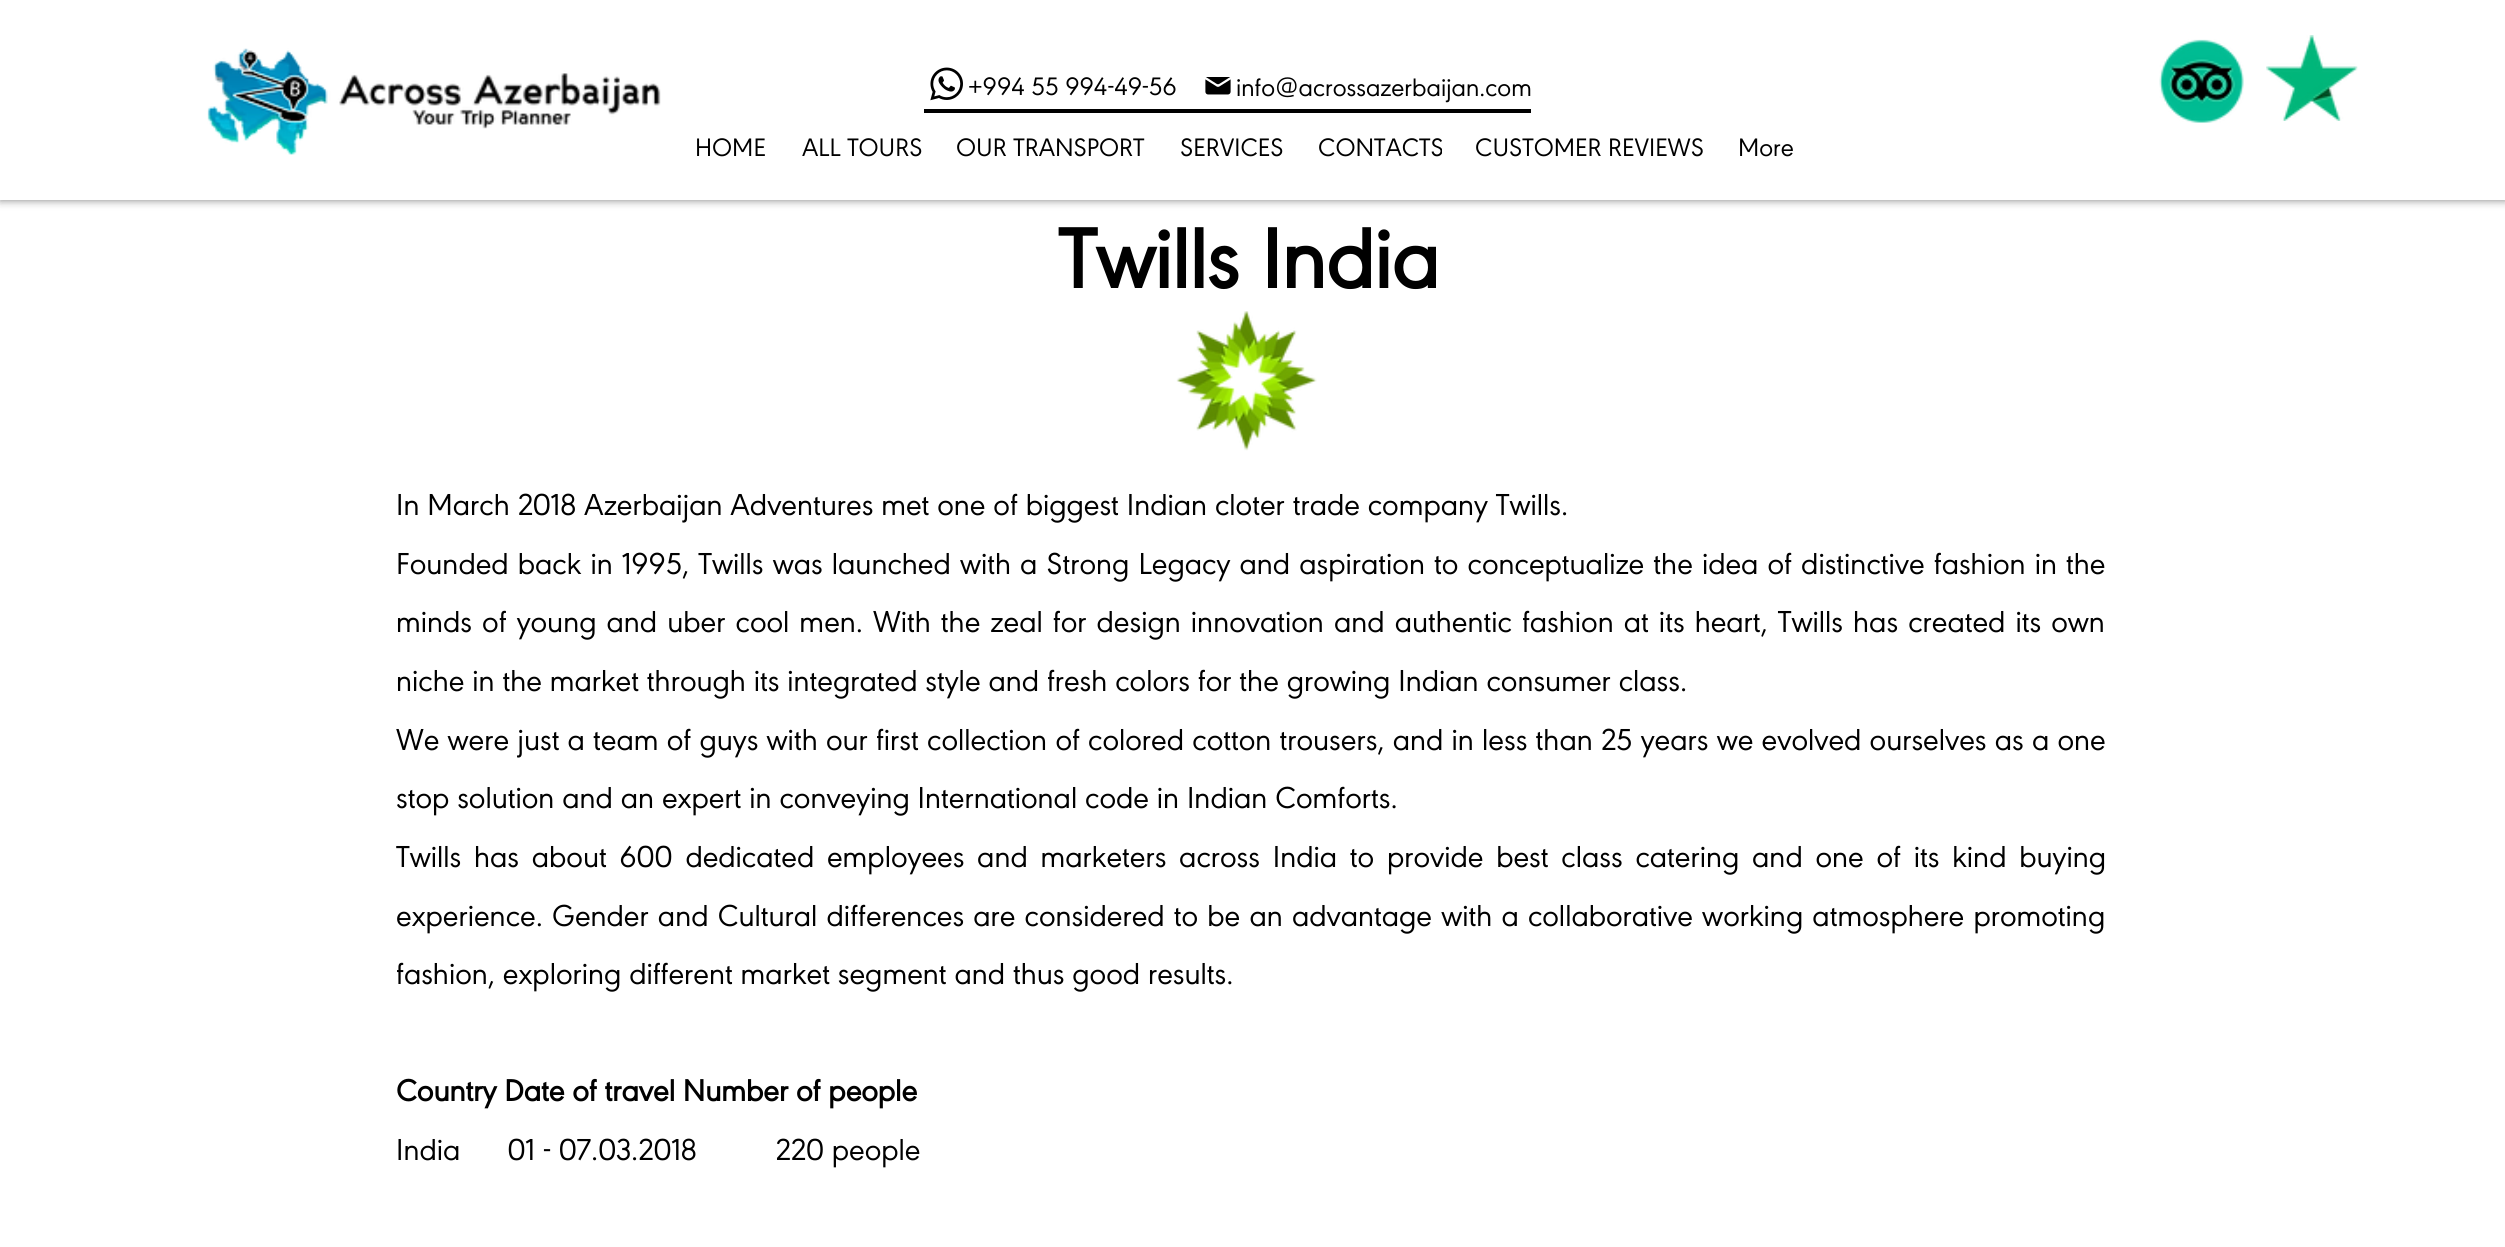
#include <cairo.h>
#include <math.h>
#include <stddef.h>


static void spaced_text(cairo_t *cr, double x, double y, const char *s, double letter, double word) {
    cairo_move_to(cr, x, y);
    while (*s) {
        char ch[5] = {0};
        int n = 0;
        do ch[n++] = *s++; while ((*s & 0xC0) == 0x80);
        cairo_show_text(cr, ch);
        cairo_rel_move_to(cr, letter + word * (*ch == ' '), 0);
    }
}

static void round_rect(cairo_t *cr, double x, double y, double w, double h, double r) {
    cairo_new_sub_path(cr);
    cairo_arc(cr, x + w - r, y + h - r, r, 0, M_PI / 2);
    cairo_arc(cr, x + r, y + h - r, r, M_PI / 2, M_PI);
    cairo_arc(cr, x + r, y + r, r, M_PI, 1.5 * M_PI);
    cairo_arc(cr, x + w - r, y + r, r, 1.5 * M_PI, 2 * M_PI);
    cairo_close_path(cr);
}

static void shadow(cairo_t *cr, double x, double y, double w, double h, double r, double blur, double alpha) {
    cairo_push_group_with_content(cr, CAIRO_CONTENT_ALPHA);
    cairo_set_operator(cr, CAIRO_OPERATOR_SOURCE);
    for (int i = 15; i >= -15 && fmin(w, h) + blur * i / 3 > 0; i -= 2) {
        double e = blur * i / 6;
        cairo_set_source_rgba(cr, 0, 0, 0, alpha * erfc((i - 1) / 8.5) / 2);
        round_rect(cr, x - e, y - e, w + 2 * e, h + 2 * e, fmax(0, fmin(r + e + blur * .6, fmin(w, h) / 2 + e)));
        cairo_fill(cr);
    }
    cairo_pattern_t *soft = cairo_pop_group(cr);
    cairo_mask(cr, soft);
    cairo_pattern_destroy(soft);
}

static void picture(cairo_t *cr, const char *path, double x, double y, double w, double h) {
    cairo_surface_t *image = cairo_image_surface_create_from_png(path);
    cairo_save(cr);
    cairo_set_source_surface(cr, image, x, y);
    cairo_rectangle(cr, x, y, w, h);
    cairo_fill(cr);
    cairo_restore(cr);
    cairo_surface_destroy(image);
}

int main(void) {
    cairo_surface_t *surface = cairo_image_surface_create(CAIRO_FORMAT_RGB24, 2505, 1247);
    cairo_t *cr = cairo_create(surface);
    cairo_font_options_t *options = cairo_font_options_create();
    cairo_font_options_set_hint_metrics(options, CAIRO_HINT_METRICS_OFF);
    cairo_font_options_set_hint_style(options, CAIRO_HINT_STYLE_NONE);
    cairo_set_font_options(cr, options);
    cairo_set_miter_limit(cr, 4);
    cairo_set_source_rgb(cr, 1, 1, 1);
    cairo_paint(cr);
    cairo_set_source_rgb(cr, 0, 0, 0);
    shadow(cr, 0, 0, 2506, 200, 0, 4.5, 0.5);
    cairo_set_source_rgb(cr, 1, 1, 1);
    cairo_rectangle(cr, 0, 0, 2505, 200);
    cairo_fill(cr);
    picture(cr, "img1.png", 207, 48, 454, 107);
    picture(cr, "img2.png", 930, 67, 33, 34);
    cairo_select_font_face(cr, "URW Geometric", CAIRO_FONT_SLANT_NORMAL, CAIRO_FONT_WEIGHT_NORMAL);
    cairo_set_font_size(cr, 26.25);
    cairo_set_source_rgb(cr, 0, 0, 0);
    cairo_move_to(cr, 968, 95);
    cairo_show_text(cr, "+994 55 994-49-56");
    cairo_move_to(cr, 1236, 96);
    cairo_show_text(cr, "info@acrossazerbaijan.com");
    cairo_rectangle(cr, 924, 109, 607, 4);
    cairo_fill(cr);
    picture(cr, "img3.png", 2159, 39, 85, 84);
    picture(cr, "img4.png", 2266, 35, 92, 86);
    picture(cr, "img5.png", 1205, 77, 26, 18);
    cairo_move_to(cr, 695, 156);
    cairo_show_text(cr, "HOME");
    cairo_move_to(cr, 802, 156);
    cairo_show_text(cr, "ALL TOURS");
    cairo_move_to(cr, 956, 156);
    cairo_show_text(cr, "OUR TRANSPORT");
    cairo_move_to(cr, 1180, 156);
    cairo_show_text(cr, "SERVICES");
    cairo_move_to(cr, 1318, 156);
    cairo_show_text(cr, "CONTACTS");
    cairo_move_to(cr, 1475, 156);
    cairo_show_text(cr, "CUSTOMER REVIEWS");
    cairo_move_to(cr, 1738, 156);
    cairo_show_text(cr, "More");
    cairo_select_font_face(cr, "URW Geometric", CAIRO_FONT_SLANT_NORMAL, CAIRO_FONT_WEIGHT_BOLD);
    cairo_set_font_size(cr, 87.5);
    cairo_move_to(cr, 1058, 288);
    cairo_show_text(cr, "Twills India");
    picture(cr, "img6.png", 1176, 311, 141, 140);
    cairo_select_font_face(cr, "URW Geometric", CAIRO_FONT_SLANT_NORMAL, CAIRO_FONT_WEIGHT_NORMAL);
    cairo_set_font_size(cr, 31.5);
    cairo_move_to(cr, 396, 515);
    cairo_show_text(cr, "In March 2018 Azerbaijan Adventures met one of biggest Indian cloter trade company Twills.");
    spaced_text(cr, 396, 574, "Founded back in 1995, Twills was launched with a Strong Legacy and aspiration to conceptualize the idea of distinctive fashion in the", 0, 1.25);
    spaced_text(cr, 396, 632, "minds of young and uber cool men. With the zeal for design innovation and authentic fashion at its heart, Twills has created its own", 0, 2.2);
    cairo_move_to(cr, 396, 691);
    cairo_show_text(cr, "niche in the market through its integrated style and fresh colors for the growing Indian consumer class.");
    spaced_text(cr, 396, 750, "We were just a team of guys with our first collection of colored cotton trousers, and in less than 25 years we evolved ourselves as a one", 0, 0.35);
    cairo_move_to(cr, 396, 808);
    cairo_show_text(cr, "stop solution and an expert in conveying International code in Indian Comforts.");
    spaced_text(cr, 396, 867, "Twills has about 600 dedicated employees and marketers across India to provide best class catering and one of its kind buying", 0, 4.9);
    spaced_text(cr, 396, 926, "experience. Gender and Cultural differences are considered to be an advantage with a collaborative working atmosphere promoting", 0, 1.3);
    cairo_move_to(cr, 396, 984);
    cairo_show_text(cr, "fashion, exploring different market segment and thus good results.");
    cairo_select_font_face(cr, "URW Geometric", CAIRO_FONT_SLANT_NORMAL, CAIRO_FONT_WEIGHT_BOLD);
    cairo_move_to(cr, 396, 1101);
    cairo_show_text(cr, "Country Date of travel Number of people");
    cairo_select_font_face(cr, "URW Geometric", CAIRO_FONT_SLANT_NORMAL, CAIRO_FONT_WEIGHT_NORMAL);
    cairo_move_to(cr, 396, 1160);
    cairo_show_text(cr, "India      01 - 07.03.2018          220 people");
    cairo_surface_write_to_png(surface, "page.png");
    cairo_font_options_destroy(options);
    cairo_destroy(cr);
    cairo_surface_destroy(surface);
    return 0;
}
